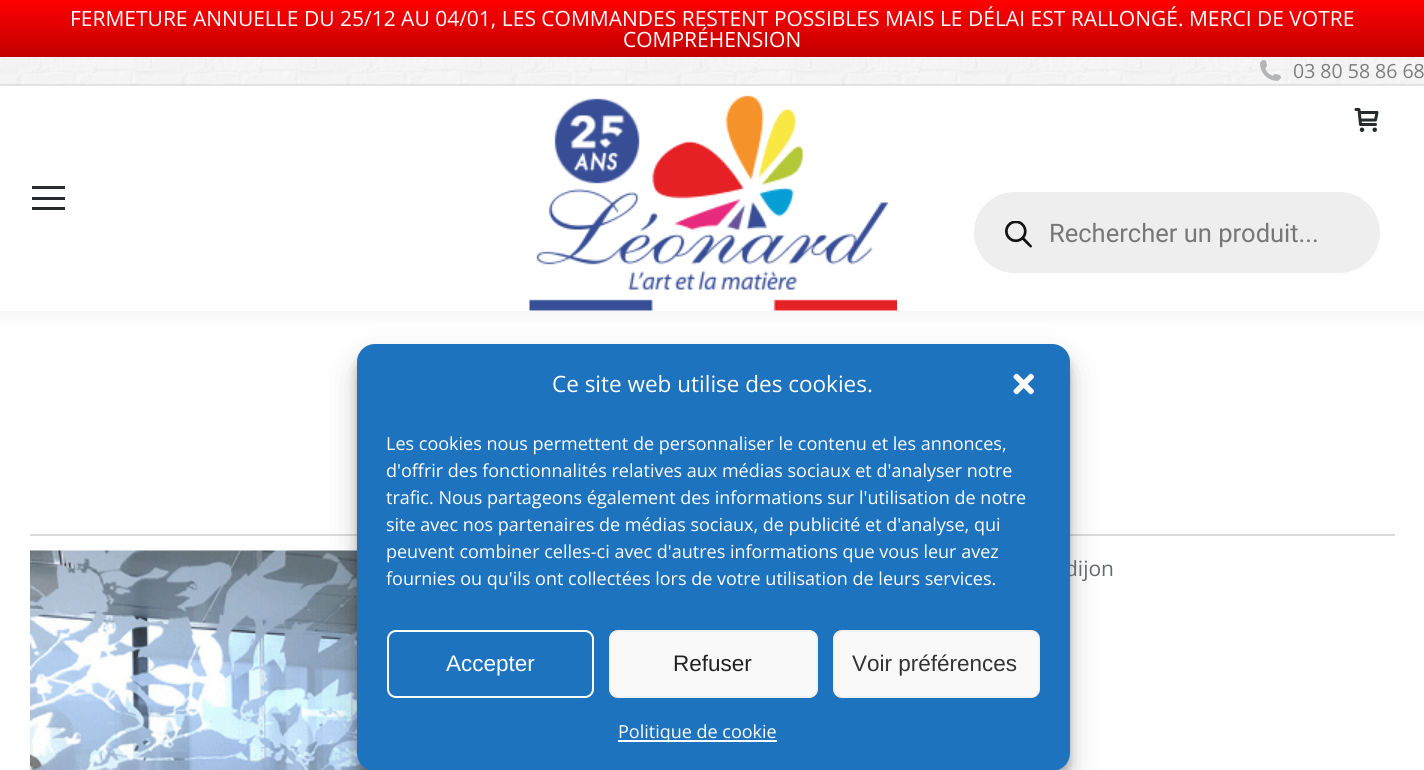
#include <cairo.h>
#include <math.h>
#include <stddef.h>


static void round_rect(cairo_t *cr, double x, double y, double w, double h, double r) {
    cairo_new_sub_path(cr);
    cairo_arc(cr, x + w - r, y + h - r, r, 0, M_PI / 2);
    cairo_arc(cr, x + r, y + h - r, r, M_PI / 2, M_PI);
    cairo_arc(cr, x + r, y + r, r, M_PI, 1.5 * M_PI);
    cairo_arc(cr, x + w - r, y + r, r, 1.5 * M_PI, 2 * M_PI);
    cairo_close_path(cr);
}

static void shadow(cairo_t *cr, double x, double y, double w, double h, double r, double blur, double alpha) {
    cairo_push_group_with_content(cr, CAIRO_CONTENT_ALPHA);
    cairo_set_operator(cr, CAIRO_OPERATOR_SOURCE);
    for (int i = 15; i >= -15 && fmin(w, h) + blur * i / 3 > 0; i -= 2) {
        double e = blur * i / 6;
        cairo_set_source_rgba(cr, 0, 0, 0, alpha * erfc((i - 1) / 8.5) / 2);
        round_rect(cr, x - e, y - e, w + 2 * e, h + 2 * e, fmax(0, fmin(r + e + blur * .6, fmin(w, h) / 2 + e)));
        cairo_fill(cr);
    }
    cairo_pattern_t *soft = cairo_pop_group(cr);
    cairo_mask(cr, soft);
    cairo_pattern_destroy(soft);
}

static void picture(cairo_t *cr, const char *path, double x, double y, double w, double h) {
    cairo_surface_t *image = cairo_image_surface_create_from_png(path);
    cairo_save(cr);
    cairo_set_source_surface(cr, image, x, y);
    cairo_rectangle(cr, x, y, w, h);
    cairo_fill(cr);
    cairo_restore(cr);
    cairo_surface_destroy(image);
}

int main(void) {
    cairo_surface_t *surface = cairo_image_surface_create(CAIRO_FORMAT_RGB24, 1424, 770);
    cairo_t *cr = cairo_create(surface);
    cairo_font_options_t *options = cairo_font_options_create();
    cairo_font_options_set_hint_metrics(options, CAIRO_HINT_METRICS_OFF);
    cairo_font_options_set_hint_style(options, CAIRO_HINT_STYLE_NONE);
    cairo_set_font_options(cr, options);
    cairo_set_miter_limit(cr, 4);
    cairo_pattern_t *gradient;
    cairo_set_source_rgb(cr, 1, 1, 1);
    cairo_paint(cr);
    cairo_set_source_rgb(cr, 0, 0, 0);
    shadow(cr, -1, 56, 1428, 256, 0, 11, 0.07);
    gradient = cairo_pattern_create_linear(713, 0, 713, 57);
    cairo_pattern_add_color_stop_rgba(gradient, 0, 1, 0, 0, 1);
    cairo_pattern_add_color_stop_rgba(gradient, 1, 0.761, 0, 0, 1);
    cairo_set_source(cr, gradient);
    cairo_pattern_destroy(gradient);
    cairo_rectangle(cr, 0, 0, 1424, 57);
    cairo_fill(cr);
    cairo_select_font_face(cr, "Open Sans", CAIRO_FONT_SLANT_NORMAL, CAIRO_FONT_WEIGHT_NORMAL);
    cairo_set_font_size(cr, 21);
    cairo_set_source_rgb(cr, 1, 1, 1);
    cairo_move_to(cr, 70, 26);
    cairo_show_text(cr, "FERMETURE ANNUELLE DU 25/12 AU 04/01, LES COMMANDES RESTENT POSSIBLES MAIS LE DÉLAI EST RALLONGÉ. MERCI DE VOTRE");
    cairo_move_to(cr, 623, 47);
    cairo_show_text(cr, "COMPRÉHENSION");
    cairo_set_source_rgb(cr, 0.859, 0.859, 0.859);
    cairo_rectangle(cr, 30, 534, 1365, 2);
    cairo_fill(cr);
    picture(cr, "img7.png", 30, 550, 339, 220);
    cairo_set_source_rgb(cr, 0, 0, 0);
    shadow(cr, 357, 353, 713, 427, 18, 4.5, 0.23);
    shadow(cr, 357, 359, 713, 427, 18, 15, 0.19);
    cairo_set_source_rgb(cr, 0.404, 0.42, 0.427);
    cairo_move_to(cr, 1065, 576);
    cairo_show_text(cr, "dijon");
    cairo_set_source_rgb(cr, 0.118, 0.451, 0.745);
    round_rect(cr, 357, 344, 713, 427, 18);
    cairo_fill(cr);
    cairo_set_font_size(cr, 22.5);
    cairo_set_source_rgb(cr, 1, 1, 1);
    cairo_move_to(cr, 552, 392);
    cairo_show_text(cr, "Ce site web utilise des cookies.");
    picture(cr, "img1.png", 1013, 373, 21, 22);
    cairo_set_font_size(cr, 18);
    cairo_move_to(cr, 386, 450);
    cairo_show_text(cr, "Les cookies nous permettent de personnaliser le contenu et les annonces,");
    cairo_move_to(cr, 386, 477);
    cairo_show_text(cr, "d'offrir des fonctionnalités relatives aux médias sociaux et d'analyser notre");
    cairo_move_to(cr, 386, 504);
    cairo_show_text(cr, "trafic. Nous partageons également des informations sur l'utilisation de notre");
    cairo_move_to(cr, 386, 531);
    cairo_show_text(cr, "site avec nos partenaires de médias sociaux, de publicité et d'analyse, qui");
    cairo_move_to(cr, 386, 558);
    cairo_show_text(cr, "peuvent combiner celles-ci avec d'autres informations que vous leur avez");
    cairo_move_to(cr, 386, 585);
    cairo_show_text(cr, "fournies ou qu'ils ont collectées lors de votre utilisation de leurs services.");
    round_rect(cr, 388, 631, 205, 66, 8);
    cairo_stroke(cr);
    cairo_select_font_face(cr, "Liberation Sans", CAIRO_FONT_SLANT_NORMAL, CAIRO_FONT_WEIGHT_NORMAL);
    cairo_set_font_size(cr, 22.5);
    cairo_move_to(cr, 446, 671);
    cairo_show_text(cr, "Accepter");
    cairo_set_source_rgb(cr, 0.976, 0.976, 0.976);
    round_rect(cr, 610, 631, 207, 66, 8);
    cairo_fill_preserve(cr);
    cairo_set_source_rgb(cr, 0.949, 0.949, 0.949);
    cairo_stroke(cr);
    cairo_set_source_rgb(cr, 0.133, 0.133, 0.133);
    cairo_move_to(cr, 673, 671);
    cairo_show_text(cr, "Refuser");
    cairo_set_source_rgb(cr, 0.976, 0.976, 0.976);
    round_rect(cr, 834, 631, 205, 66, 8);
    cairo_fill_preserve(cr);
    cairo_set_source_rgb(cr, 0.949, 0.949, 0.949);
    cairo_stroke(cr);
    cairo_set_source_rgb(cr, 0.2, 0.2, 0.2);
    cairo_move_to(cr, 852, 671);
    cairo_show_text(cr, "Voir préférences");
    cairo_set_source_rgb(cr, 1, 1, 1);
    cairo_rectangle(cr, 618, 740, 159, 2);
    cairo_fill(cr);
    cairo_select_font_face(cr, "Open Sans", CAIRO_FONT_SLANT_NORMAL, CAIRO_FONT_WEIGHT_NORMAL);
    cairo_set_font_size(cr, 18);
    cairo_move_to(cr, 618, 738);
    cairo_show_text(cr, "Politique de cookie");
    cairo_rectangle(cr, 0, 85, 1424, 226);
    cairo_fill(cr);
    picture(cr, "img2.png", 0, 57, 1424, 29);
    picture(cr, "img3.png", 1260, 60, 21, 21);
    cairo_set_font_size(cr, 19.5);
    cairo_set_source_rgb(cr, 0.49, 0.49, 0.49);
    cairo_move_to(cr, 1293, 78);
    cairo_show_text(cr, "03 80 58 86 68");
    cairo_set_source_rgba(cr, 0.702, 0.71, 0.714, 0.32);
    cairo_rectangle(cr, 0, 84, 1424, 2);
    cairo_fill(cr);
    cairo_set_source_rgb(cr, 0.149, 0.169, 0.18);
    cairo_rectangle(cr, 32, 186, 33, 3);
    cairo_fill(cr);
    cairo_rectangle(cr, 32, 197, 33, 3);
    cairo_fill(cr);
    cairo_rectangle(cr, 32, 207, 33, 3);
    cairo_fill(cr);
    picture(cr, "img4.png", 529, 95, 368, 216);
    picture(cr, "img5.png", 1354, 108, 25, 24);
    cairo_set_source_rgb(cr, 0.933, 0.933, 0.933);
    round_rect(cr, 974, 192, 406, 81, 40.5);
    cairo_fill(cr);
    picture(cr, "img6.png", 1005, 221, 27, 27);
    cairo_select_font_face(cr, "Roboto", CAIRO_FONT_SLANT_NORMAL, CAIRO_FONT_WEIGHT_NORMAL);
    cairo_set_font_size(cr, 25.5);
    cairo_set_source_rgb(cr, 0.467, 0.467, 0.467);
    cairo_move_to(cr, 1049, 242);
    cairo_show_text(cr, "Rechercher un produit...");
    cairo_surface_write_to_png(surface, "page.png");
    cairo_font_options_destroy(options);
    cairo_destroy(cr);
    cairo_surface_destroy(surface);
    return 0;
}
